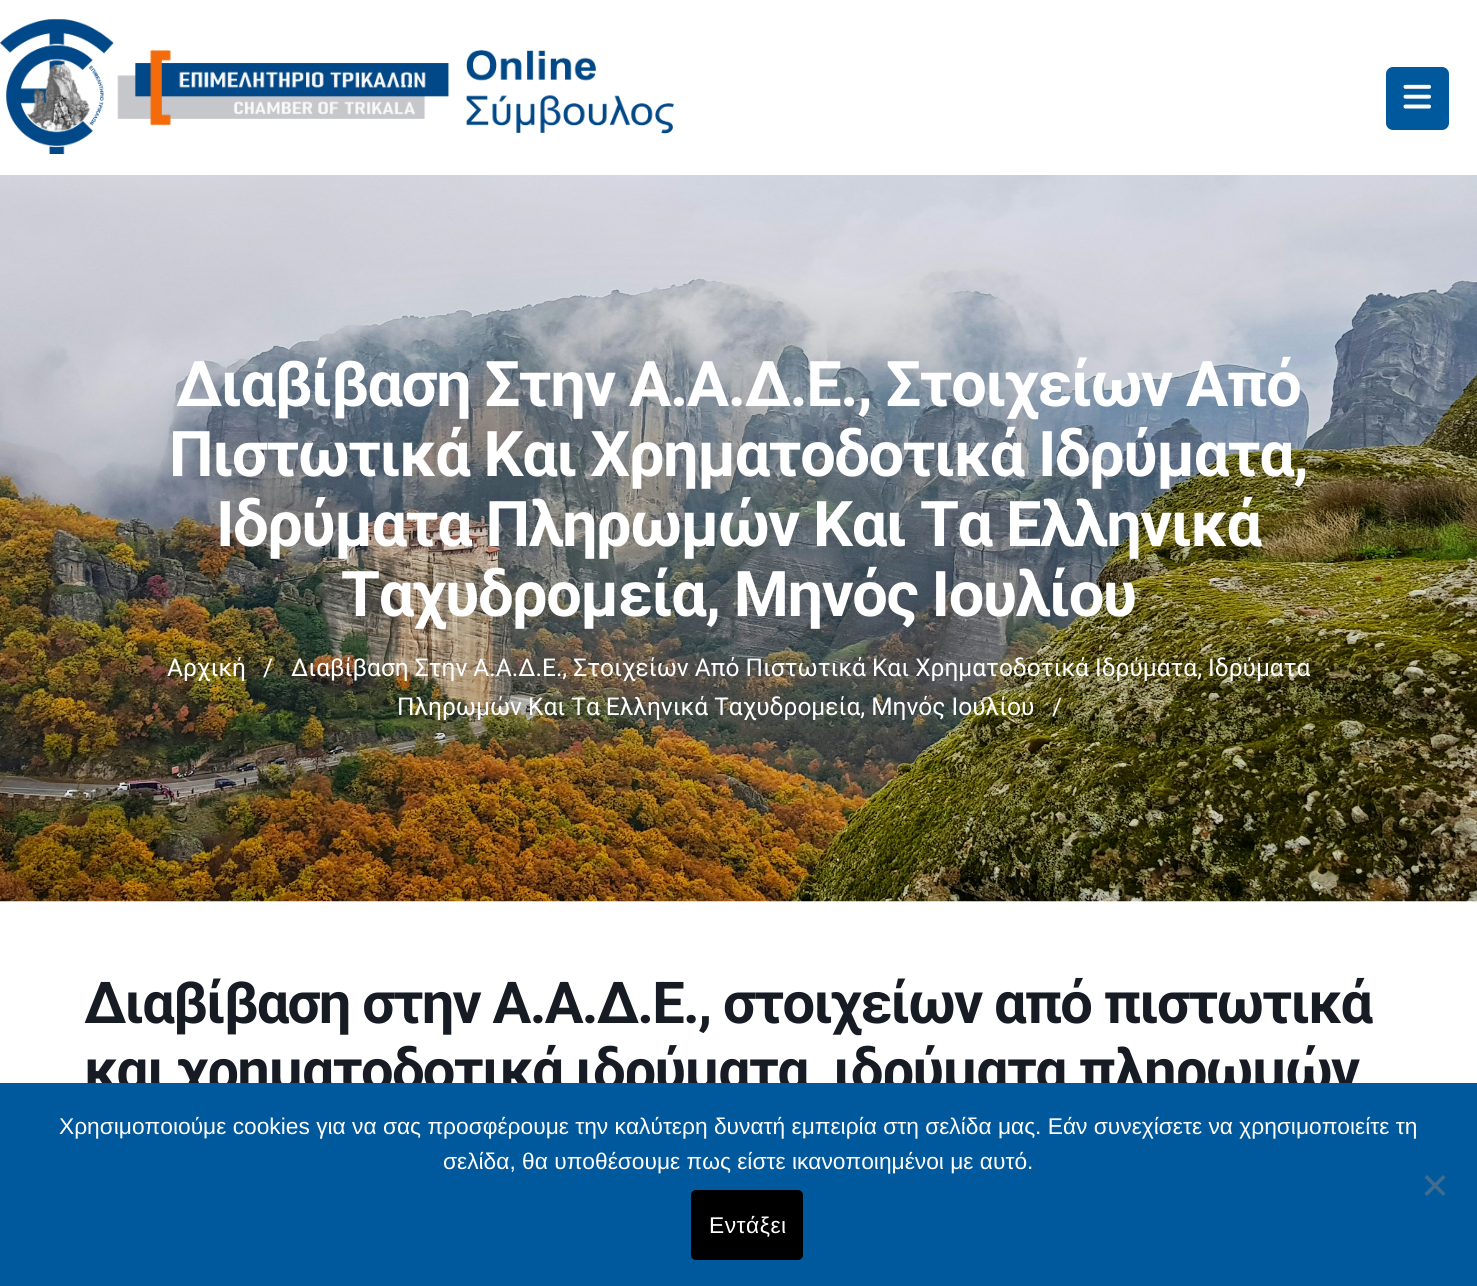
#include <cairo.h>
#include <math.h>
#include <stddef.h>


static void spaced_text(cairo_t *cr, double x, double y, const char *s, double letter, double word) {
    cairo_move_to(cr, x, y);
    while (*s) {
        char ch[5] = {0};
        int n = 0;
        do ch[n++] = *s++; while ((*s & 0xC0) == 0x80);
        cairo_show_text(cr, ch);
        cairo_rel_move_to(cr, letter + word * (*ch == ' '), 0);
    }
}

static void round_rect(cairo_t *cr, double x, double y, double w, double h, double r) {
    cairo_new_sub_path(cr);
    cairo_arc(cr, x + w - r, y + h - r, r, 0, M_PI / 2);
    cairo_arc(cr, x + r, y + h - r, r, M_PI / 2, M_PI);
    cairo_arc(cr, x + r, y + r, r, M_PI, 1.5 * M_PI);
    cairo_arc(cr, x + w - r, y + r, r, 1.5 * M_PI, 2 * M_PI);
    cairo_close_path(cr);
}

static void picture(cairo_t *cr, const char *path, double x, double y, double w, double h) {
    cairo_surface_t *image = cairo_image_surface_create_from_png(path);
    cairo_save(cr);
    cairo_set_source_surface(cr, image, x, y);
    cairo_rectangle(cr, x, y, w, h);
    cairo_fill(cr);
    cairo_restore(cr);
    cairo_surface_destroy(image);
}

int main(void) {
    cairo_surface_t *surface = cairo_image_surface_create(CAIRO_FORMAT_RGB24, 1477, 1286);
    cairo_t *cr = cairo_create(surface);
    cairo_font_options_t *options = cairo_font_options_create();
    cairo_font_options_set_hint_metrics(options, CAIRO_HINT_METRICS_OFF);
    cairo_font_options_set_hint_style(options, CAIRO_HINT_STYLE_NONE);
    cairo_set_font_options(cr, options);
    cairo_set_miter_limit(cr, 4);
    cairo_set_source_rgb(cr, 1, 1, 1);
    cairo_paint(cr);
    picture(cr, "img1.png", 0, 19, 674, 135);
    cairo_set_source_rgb(cr, 0, 0.349, 0.616);
    round_rect(cr, 1386, 67, 63, 63, 7);
    cairo_fill(cr);
    picture(cr, "img2.png", 1403, 84, 28, 25);
    picture(cr, "img3.png", 0, 175, 1477, 727);
    cairo_select_font_face(cr, "Roboto", CAIRO_FONT_SLANT_NORMAL, CAIRO_FONT_WEIGHT_BOLD);
    cairo_set_font_size(cr, 63);
    cairo_set_source_rgb(cr, 1, 1, 1);
    spaced_text(cr, 176, 406, "Διαβίβαση Στην Α.Α.Δ.Ε., Στοιχείων Από", -1.4, 0);
    spaced_text(cr, 169, 476, "Πιστωτικά Και Χρηματοδοτικά Ιδρύματα,", -1.4, 0);
    spaced_text(cr, 216, 546, "Ιδρύματα Πληρωμών Και Τα Ελληνικά", -1.4, 0);
    spaced_text(cr, 341, 616, "Ταχυδρομεία, Μηνός Ιουλίου", -1.4, 0);
    cairo_select_font_face(cr, "Roboto", CAIRO_FONT_SLANT_NORMAL, CAIRO_FONT_WEIGHT_NORMAL);
    cairo_set_font_size(cr, 24.5);
    cairo_move_to(cr, 167, 676);
    cairo_show_text(cr, "Αρχική");
    cairo_move_to(cr, 263, 676);
    cairo_show_text(cr, "/");
    cairo_move_to(cr, 291, 676);
    cairo_show_text(cr, "Διαβίβαση Στην Α.Α.Δ.Ε., Στοιχείων Από Πιστωτικά Και Χρηματοδοτικά Ιδρύματα, Ιδρύματα");
    cairo_move_to(cr, 397, 715);
    cairo_show_text(cr, "Πληρωμών Και Τα Ελληνικά Ταχυδρομεία, Μηνός Ιουλίου");
    cairo_move_to(cr, 1052, 715);
    cairo_show_text(cr, "/");
    cairo_select_font_face(cr, "Roboto", CAIRO_FONT_SLANT_NORMAL, CAIRO_FONT_WEIGHT_BOLD);
    cairo_set_font_size(cr, 57.75);
    cairo_set_source_rgb(cr, 0.09, 0.11, 0.141);
    spaced_text(cr, 84, 1023, "Διαβίβαση στην Α.Α.Δ.Ε., στοιχείων από πιστωτικά", -1.75, 0);
    spaced_text(cr, 84, 1090, "και χρηματοδοτικά ιδρύματα, ιδρύματα πληρωμών", -1.75, 0);
    cairo_set_source_rgb(cr, 0, 0.349, 0.616);
    cairo_rectangle(cr, 0, 1083, 1477, 203);
    cairo_fill(cr);
    cairo_select_font_face(cr, "Liberation Sans", CAIRO_FONT_SLANT_NORMAL, CAIRO_FONT_WEIGHT_NORMAL);
    cairo_set_font_size(cr, 22.75);
    cairo_set_source_rgb(cr, 1, 1, 1);
    cairo_move_to(cr, 59, 1134);
    cairo_show_text(cr, "Χρησιμοποιούμε cookies για να σας προσφέρουμε την καλύτερη δυνατή εμπειρία στη σελίδα μας. Εάν συνεχίσετε να χρησιμοποιείτε τη");
    cairo_move_to(cr, 443, 1169);
    cairo_show_text(cr, "σελίδα, θα υποθέσουμε πως είστε ικανοποιημένοι με αυτό.");
    cairo_set_source_rgb(cr, 0.251, 0.427, 0.561);
    cairo_new_path(cr);
    cairo_move_to(cr, 1443, 1175);
    cairo_line_to(cr, 1445.5, 1177.5);
    cairo_line_to(cr, 1427, 1196);
    cairo_line_to(cr, 1424.5, 1193.5);
    cairo_close_path(cr);
    cairo_fill(cr);
    cairo_new_path(cr);
    cairo_move_to(cr, 1424.5, 1177.5);
    cairo_line_to(cr, 1427, 1175);
    cairo_line_to(cr, 1445.5, 1193.5);
    cairo_line_to(cr, 1443, 1196);
    cairo_close_path(cr);
    cairo_fill(cr);
    cairo_set_source_rgb(cr, 0, 0, 0);
    round_rect(cr, 691, 1190, 112, 70, 5);
    cairo_fill(cr);
    cairo_set_source_rgb(cr, 1, 1, 1);
    spaced_text(cr, 709, 1233, "Εντάξει", 0.5, 0);
    cairo_surface_write_to_png(surface, "page.png");
    cairo_font_options_destroy(options);
    cairo_destroy(cr);
    cairo_surface_destroy(surface);
    return 0;
}
